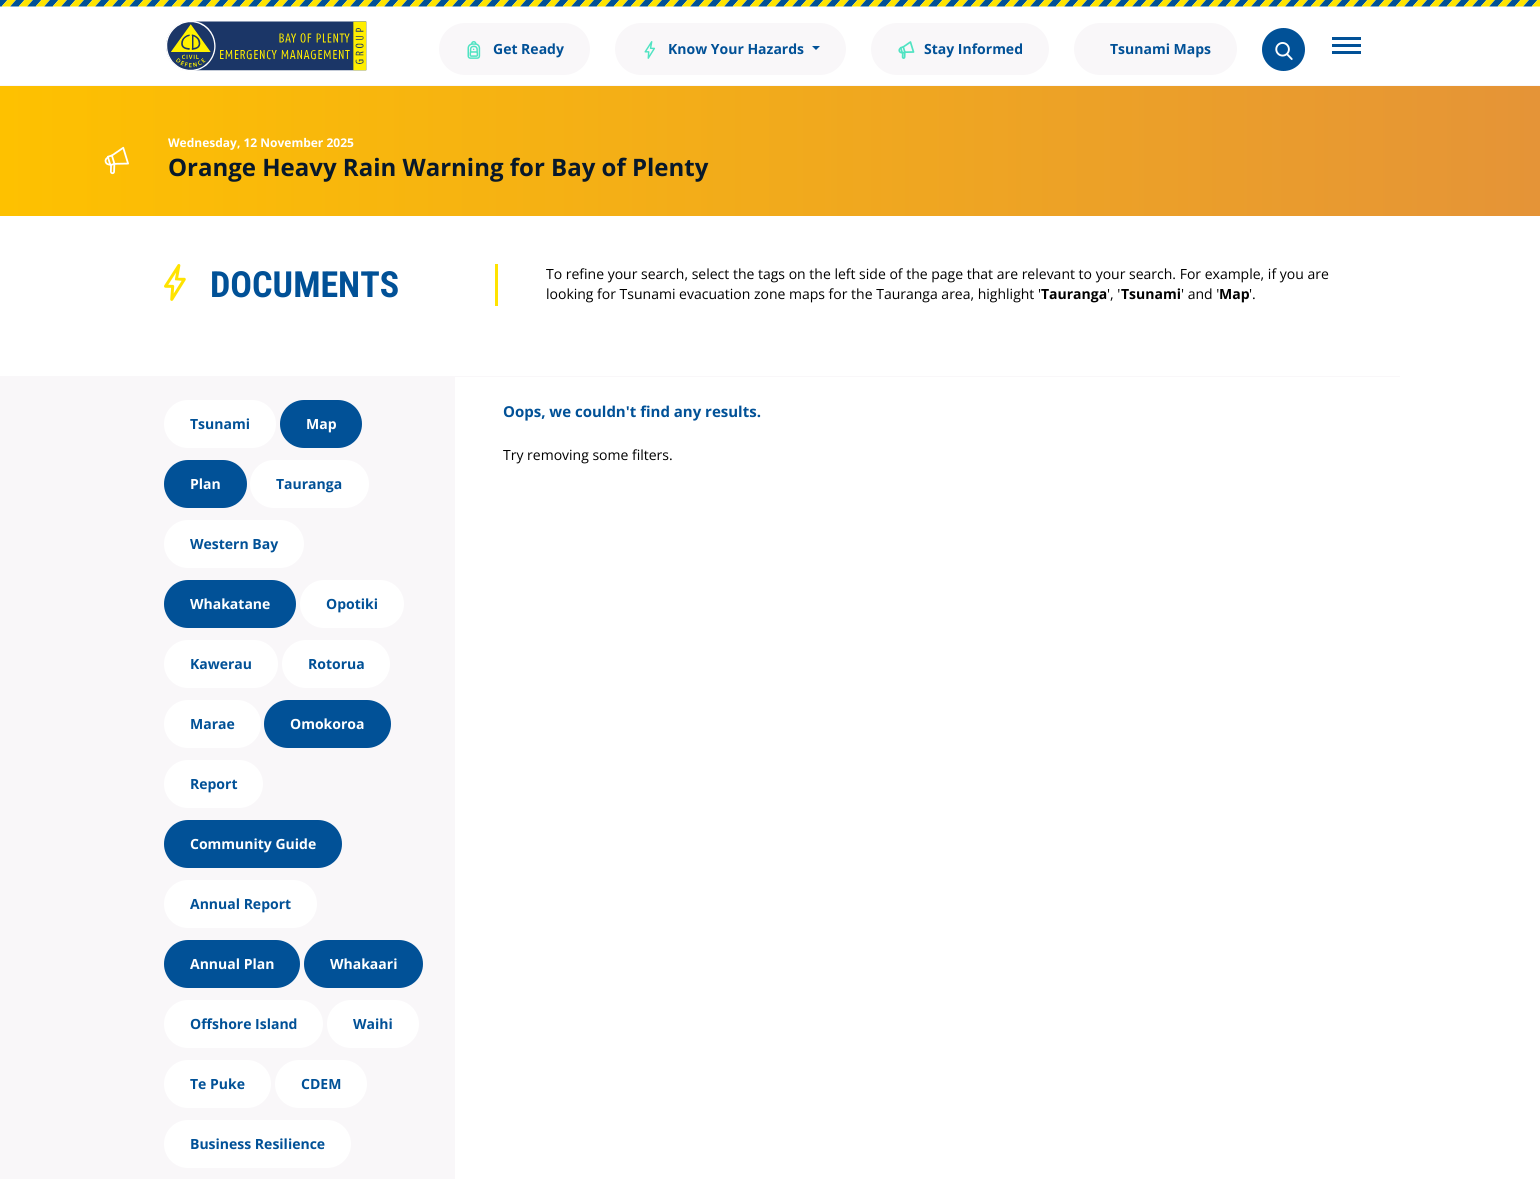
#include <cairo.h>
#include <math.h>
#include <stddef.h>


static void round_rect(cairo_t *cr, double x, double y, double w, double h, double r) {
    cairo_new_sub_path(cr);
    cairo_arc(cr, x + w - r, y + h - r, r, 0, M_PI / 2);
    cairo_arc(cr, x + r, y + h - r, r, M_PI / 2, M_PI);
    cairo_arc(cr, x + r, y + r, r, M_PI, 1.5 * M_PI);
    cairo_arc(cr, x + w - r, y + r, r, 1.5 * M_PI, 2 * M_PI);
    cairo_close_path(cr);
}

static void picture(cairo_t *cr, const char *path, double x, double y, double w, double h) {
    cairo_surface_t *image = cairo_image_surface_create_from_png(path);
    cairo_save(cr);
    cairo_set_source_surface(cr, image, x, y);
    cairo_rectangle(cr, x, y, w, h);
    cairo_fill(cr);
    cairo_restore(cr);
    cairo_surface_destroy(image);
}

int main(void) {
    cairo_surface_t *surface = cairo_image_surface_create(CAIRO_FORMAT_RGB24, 1540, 1179);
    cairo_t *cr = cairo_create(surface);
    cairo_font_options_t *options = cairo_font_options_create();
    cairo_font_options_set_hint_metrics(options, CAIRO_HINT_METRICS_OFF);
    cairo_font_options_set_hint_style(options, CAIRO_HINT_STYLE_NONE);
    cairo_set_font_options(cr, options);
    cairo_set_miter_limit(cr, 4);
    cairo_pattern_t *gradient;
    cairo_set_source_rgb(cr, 1, 1, 1);
    cairo_paint(cr);
    cairo_set_source_rgb(cr, 0.973, 0.965, 0.973);
    cairo_rectangle(cr, 0, 85, 1540, 1);
    cairo_fill(cr);
    picture(cr, "img1.png", 0, 0, 1540, 7);
    picture(cr, "img2.png", 166, 21, 201, 50);
    round_rect(cr, 439, 23, 151, 52, 26);
    cairo_fill(cr);
    picture(cr, "img3.png", 467, 41, 14, 18);
    cairo_select_font_face(cr, "Open Sans", CAIRO_FONT_SLANT_NORMAL, CAIRO_FONT_WEIGHT_BOLD);
    cairo_set_font_size(cr, 14);
    cairo_set_source_rgb(cr, 0.004, 0.318, 0.592);
    cairo_move_to(cr, 493, 54);
    cairo_show_text(cr, "Get Ready");
    cairo_set_source_rgb(cr, 0.973, 0.965, 0.973);
    round_rect(cr, 615, 23, 231, 52, 26);
    cairo_fill(cr);
    picture(cr, "img4.png", 644, 41, 12, 18);
    cairo_set_source_rgb(cr, 0.004, 0.318, 0.592);
    cairo_move_to(cr, 668, 54);
    cairo_show_text(cr, "Know Your Hazards");
    cairo_new_path(cr);
    cairo_move_to(cr, 812, 46);
    cairo_line_to(cr, 820, 46);
    cairo_line_to(cr, 816, 50);
    cairo_close_path(cr);
    cairo_fill(cr);
    cairo_set_source_rgb(cr, 0.973, 0.965, 0.973);
    round_rect(cr, 871, 23, 178, 52, 26);
    cairo_fill(cr);
    picture(cr, "img5.png", 898, 41, 17, 18);
    cairo_set_source_rgb(cr, 0.004, 0.318, 0.592);
    cairo_move_to(cr, 924, 54);
    cairo_show_text(cr, "Stay Informed");
    cairo_set_source_rgb(cr, 0.973, 0.965, 0.973);
    round_rect(cr, 1074, 23, 163, 52, 26);
    cairo_fill(cr);
    cairo_set_source_rgb(cr, 0.004, 0.318, 0.592);
    cairo_move_to(cr, 1110, 54);
    cairo_show_text(cr, "Tsunami Maps");
    cairo_new_path(cr);
    cairo_arc(cr, 1283.5, 49.5, 21.5, 0, 2 * M_PI);
    cairo_fill(cr);
    picture(cr, "img6.png", 1275, 42, 18, 18);
    cairo_rectangle(cr, 1332, 44, 29, 3);
    cairo_fill(cr);
    cairo_rectangle(cr, 1332, 37, 29, 3);
    cairo_fill(cr);
    cairo_rectangle(cr, 1332, 51, 29, 3);
    cairo_fill(cr);
    gradient = cairo_pattern_create_linear(0, 151, 1540, 151);
    cairo_pattern_add_color_stop_rgba(gradient, 0, 0.996, 0.757, 0, 1);
    cairo_pattern_add_color_stop_rgba(gradient, 1, 0.898, 0.58, 0.216, 1);
    cairo_set_source(cr, gradient);
    cairo_pattern_destroy(gradient);
    cairo_rectangle(cr, 0, 86, 1540, 130);
    cairo_fill(cr);
    picture(cr, "img7.png", 104, 146, 25, 29);
    cairo_set_font_size(cr, 12);
    cairo_set_source_rgb(cr, 1, 1, 1);
    cairo_move_to(cr, 168, 147);
    cairo_show_text(cr, "Wednesday, 12 November 2025");
    cairo_set_font_size(cr, 24);
    cairo_set_source_rgb(cr, 0.035, 0.094, 0.165);
    cairo_move_to(cr, 168, 176);
    cairo_show_text(cr, "Orange Heavy Rain Warning for Bay of Plenty");
    cairo_set_source_rgb(cr, 1, 0.89, 0);
    cairo_rectangle(cr, 495, 264, 3, 42);
    cairo_fill(cr);
    picture(cr, "img8.png", 164, 264, 22, 37);
    cairo_select_font_face(cr, "Roboto Condensed", CAIRO_FONT_SLANT_NORMAL, CAIRO_FONT_WEIGHT_BOLD);
    cairo_set_font_size(cr, 36);
    cairo_set_source_rgb(cr, 0.004, 0.318, 0.592);
    cairo_move_to(cr, 210, 297);
    cairo_show_text(cr, "DOCUMENTS");
    cairo_select_font_face(cr, "Open Sans", CAIRO_FONT_SLANT_NORMAL, CAIRO_FONT_WEIGHT_NORMAL);
    cairo_set_font_size(cr, 14);
    cairo_set_source_rgb(cr, 0, 0, 0);
    cairo_move_to(cr, 546, 279);
    cairo_show_text(cr, "To refine your search, select the tags on the left side of the page that are relevant to your search. For example, if you are");
    cairo_move_to(cr, 546, 299);
    cairo_show_text(cr, "looking for Tsunami evacuation zone maps for the Tauranga area, highlight '");
    cairo_select_font_face(cr, "Open Sans", CAIRO_FONT_SLANT_NORMAL, CAIRO_FONT_WEIGHT_BOLD);
    cairo_move_to(cr, 1041, 299);
    cairo_show_text(cr, "Tauranga");
    cairo_select_font_face(cr, "Open Sans", CAIRO_FONT_SLANT_NORMAL, CAIRO_FONT_WEIGHT_NORMAL);
    cairo_move_to(cr, 1107, 299);
    cairo_show_text(cr, "', '");
    cairo_select_font_face(cr, "Open Sans", CAIRO_FONT_SLANT_NORMAL, CAIRO_FONT_WEIGHT_BOLD);
    cairo_move_to(cr, 1121, 299);
    cairo_show_text(cr, "Tsunami");
    cairo_select_font_face(cr, "Open Sans", CAIRO_FONT_SLANT_NORMAL, CAIRO_FONT_WEIGHT_NORMAL);
    cairo_move_to(cr, 1181, 299);
    cairo_show_text(cr, "' and '");
    cairo_select_font_face(cr, "Open Sans", CAIRO_FONT_SLANT_NORMAL, CAIRO_FONT_WEIGHT_BOLD);
    cairo_move_to(cr, 1219, 299);
    cairo_show_text(cr, "Map");
    cairo_select_font_face(cr, "Open Sans", CAIRO_FONT_SLANT_NORMAL, CAIRO_FONT_WEIGHT_NORMAL);
    cairo_move_to(cr, 1249, 299);
    cairo_show_text(cr, "'.");
    cairo_set_source_rgb(cr, 0.973, 0.965, 0.973);
    cairo_rectangle(cr, 0, 376, 455, 803);
    cairo_fill(cr);
    cairo_set_source_rgb(cr, 1, 1, 1);
    round_rect(cr, 164, 400, 112, 48, 24);
    cairo_fill(cr);
    cairo_select_font_face(cr, "Open Sans", CAIRO_FONT_SLANT_NORMAL, CAIRO_FONT_WEIGHT_BOLD);
    cairo_set_source_rgb(cr, 0.004, 0.318, 0.592);
    cairo_move_to(cr, 190, 429);
    cairo_show_text(cr, "Tsunami");
    round_rect(cr, 280, 400, 82, 48, 24);
    cairo_fill(cr);
    cairo_set_source_rgb(cr, 1, 1, 1);
    cairo_move_to(cr, 306, 429);
    cairo_show_text(cr, "Map");
    cairo_set_source_rgb(cr, 0.004, 0.318, 0.592);
    round_rect(cr, 164, 460, 83, 48, 24);
    cairo_fill(cr);
    cairo_set_source_rgb(cr, 1, 1, 1);
    cairo_move_to(cr, 190, 489);
    cairo_show_text(cr, "Plan");
    round_rect(cr, 250, 460, 119, 48, 24);
    cairo_fill(cr);
    cairo_set_source_rgb(cr, 0.004, 0.318, 0.592);
    cairo_move_to(cr, 276, 489);
    cairo_show_text(cr, "Tauranga");
    cairo_set_source_rgb(cr, 1, 1, 1);
    round_rect(cr, 164, 520, 140, 48, 24);
    cairo_fill(cr);
    cairo_set_source_rgb(cr, 0.004, 0.318, 0.592);
    cairo_move_to(cr, 190, 549);
    cairo_show_text(cr, "Western Bay");
    round_rect(cr, 164, 580, 132, 48, 24);
    cairo_fill(cr);
    cairo_set_source_rgb(cr, 1, 1, 1);
    cairo_move_to(cr, 190, 609);
    cairo_show_text(cr, "Whakatane");
    round_rect(cr, 300, 580, 104, 48, 24);
    cairo_fill(cr);
    cairo_set_source_rgb(cr, 0.004, 0.318, 0.592);
    cairo_move_to(cr, 326, 609);
    cairo_show_text(cr, "Opotiki");
    cairo_set_source_rgb(cr, 1, 1, 1);
    round_rect(cr, 164, 640, 114, 48, 24);
    cairo_fill(cr);
    cairo_set_source_rgb(cr, 0.004, 0.318, 0.592);
    cairo_move_to(cr, 190, 669);
    cairo_show_text(cr, "Kawerau");
    cairo_set_source_rgb(cr, 1, 1, 1);
    round_rect(cr, 282, 640, 108, 48, 24);
    cairo_fill(cr);
    cairo_set_source_rgb(cr, 0.004, 0.318, 0.592);
    cairo_move_to(cr, 308, 669);
    cairo_show_text(cr, "Rotorua");
    cairo_set_source_rgb(cr, 1, 1, 1);
    round_rect(cr, 164, 700, 97, 48, 24);
    cairo_fill(cr);
    cairo_set_source_rgb(cr, 0.004, 0.318, 0.592);
    cairo_move_to(cr, 190, 729);
    cairo_show_text(cr, "Marae");
    round_rect(cr, 264, 700, 127, 48, 24);
    cairo_fill(cr);
    cairo_set_source_rgb(cr, 1, 1, 1);
    cairo_move_to(cr, 290, 729);
    cairo_show_text(cr, "Omokoroa");
    round_rect(cr, 164, 760, 99, 48, 24);
    cairo_fill(cr);
    cairo_set_source_rgb(cr, 0.004, 0.318, 0.592);
    cairo_move_to(cr, 190, 789);
    cairo_show_text(cr, "Report");
    round_rect(cr, 164, 820, 178, 48, 24);
    cairo_fill(cr);
    cairo_set_source_rgb(cr, 1, 1, 1);
    cairo_move_to(cr, 190, 849);
    cairo_show_text(cr, "Community Guide");
    round_rect(cr, 164, 880, 153, 48, 24);
    cairo_fill(cr);
    cairo_set_source_rgb(cr, 0.004, 0.318, 0.592);
    cairo_move_to(cr, 190, 909);
    cairo_show_text(cr, "Annual Report");
    round_rect(cr, 164, 940, 136, 48, 24);
    cairo_fill(cr);
    cairo_set_source_rgb(cr, 1, 1, 1);
    cairo_move_to(cr, 190, 969);
    cairo_show_text(cr, "Annual Plan");
    cairo_set_source_rgb(cr, 0.004, 0.318, 0.592);
    round_rect(cr, 304, 940, 119, 48, 24);
    cairo_fill(cr);
    cairo_set_source_rgb(cr, 1, 1, 1);
    cairo_move_to(cr, 330, 969);
    cairo_show_text(cr, "Whakaari");
    round_rect(cr, 164, 1000, 159, 48, 24);
    cairo_fill(cr);
    cairo_set_source_rgb(cr, 0.004, 0.318, 0.592);
    cairo_move_to(cr, 190, 1029);
    cairo_show_text(cr, "Offshore Island");
    cairo_set_source_rgb(cr, 1, 1, 1);
    round_rect(cr, 327, 1000, 92, 48, 24);
    cairo_fill(cr);
    cairo_set_source_rgb(cr, 0.004, 0.318, 0.592);
    cairo_move_to(cr, 353, 1029);
    cairo_show_text(cr, "Waihi");
    cairo_set_source_rgb(cr, 1, 1, 1);
    round_rect(cr, 164, 1060, 107, 48, 24);
    cairo_fill(cr);
    cairo_set_source_rgb(cr, 0.004, 0.318, 0.592);
    cairo_move_to(cr, 190, 1089);
    cairo_show_text(cr, "Te Puke");
    cairo_set_source_rgb(cr, 1, 1, 1);
    round_rect(cr, 275, 1060, 92, 48, 24);
    cairo_fill(cr);
    cairo_set_source_rgb(cr, 0.004, 0.318, 0.592);
    cairo_move_to(cr, 301, 1089);
    cairo_show_text(cr, "CDEM");
    cairo_set_source_rgb(cr, 1, 1, 1);
    round_rect(cr, 164, 1120, 187, 48, 24);
    cairo_fill(cr);
    cairo_set_source_rgb(cr, 0.004, 0.318, 0.592);
    cairo_move_to(cr, 190, 1149);
    cairo_show_text(cr, "Business Resilience");
    cairo_set_source_rgb(cr, 0.973, 0.965, 0.973);
    cairo_rectangle(cr, 455, 376, 945, 1);
    cairo_fill(cr);
    cairo_set_font_size(cr, 15);
    cairo_set_source_rgb(cr, 0.004, 0.318, 0.592);
    cairo_move_to(cr, 503, 417);
    cairo_show_text(cr, "Oops, we couldn't find any results.");
    cairo_select_font_face(cr, "Open Sans", CAIRO_FONT_SLANT_NORMAL, CAIRO_FONT_WEIGHT_NORMAL);
    cairo_set_font_size(cr, 14);
    cairo_set_source_rgb(cr, 0, 0, 0);
    cairo_move_to(cr, 503, 460);
    cairo_show_text(cr, "Try removing some filters.");
    cairo_surface_write_to_png(surface, "page.png");
    cairo_font_options_destroy(options);
    cairo_destroy(cr);
    cairo_surface_destroy(surface);
    return 0;
}
